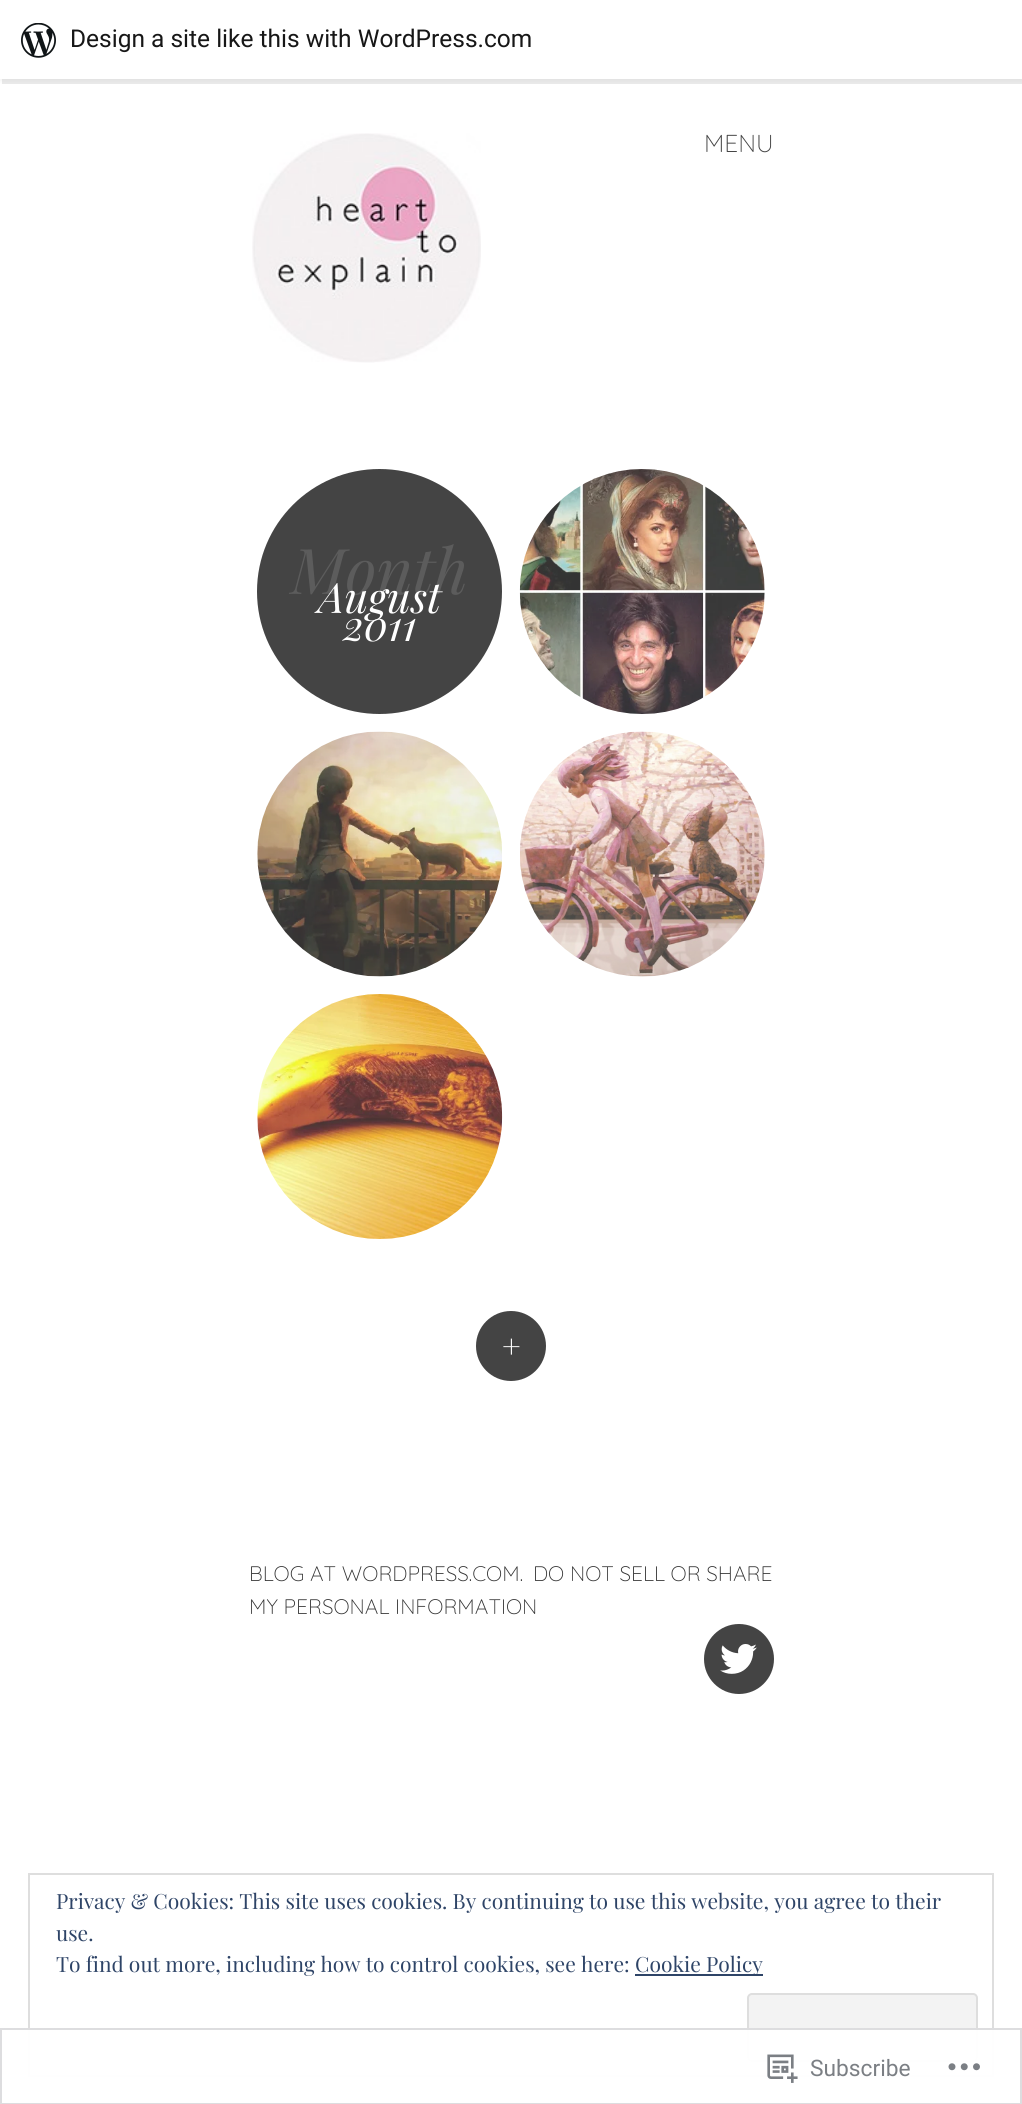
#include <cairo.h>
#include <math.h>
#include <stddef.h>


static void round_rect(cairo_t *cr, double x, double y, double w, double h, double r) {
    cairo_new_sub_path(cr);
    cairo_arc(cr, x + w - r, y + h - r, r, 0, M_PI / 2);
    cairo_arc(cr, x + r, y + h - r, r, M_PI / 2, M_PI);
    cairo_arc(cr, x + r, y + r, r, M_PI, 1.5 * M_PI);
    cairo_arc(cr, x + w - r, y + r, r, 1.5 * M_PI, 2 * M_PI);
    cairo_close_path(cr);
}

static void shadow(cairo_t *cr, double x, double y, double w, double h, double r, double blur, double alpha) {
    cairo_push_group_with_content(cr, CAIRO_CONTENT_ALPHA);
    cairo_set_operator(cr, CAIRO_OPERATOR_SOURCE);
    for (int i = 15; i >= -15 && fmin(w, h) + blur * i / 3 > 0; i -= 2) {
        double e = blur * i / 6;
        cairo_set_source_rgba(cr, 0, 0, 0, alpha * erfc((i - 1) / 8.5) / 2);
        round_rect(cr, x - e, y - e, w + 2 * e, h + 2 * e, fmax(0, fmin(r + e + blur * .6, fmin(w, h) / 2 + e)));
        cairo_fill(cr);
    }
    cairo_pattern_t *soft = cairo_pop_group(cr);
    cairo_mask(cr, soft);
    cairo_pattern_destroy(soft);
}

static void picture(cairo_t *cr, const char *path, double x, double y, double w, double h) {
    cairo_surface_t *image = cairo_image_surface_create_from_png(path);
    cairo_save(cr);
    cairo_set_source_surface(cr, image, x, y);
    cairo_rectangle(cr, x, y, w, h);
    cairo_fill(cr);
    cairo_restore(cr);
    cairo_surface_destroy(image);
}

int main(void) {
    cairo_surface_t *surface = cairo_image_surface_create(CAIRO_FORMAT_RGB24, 1022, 2104);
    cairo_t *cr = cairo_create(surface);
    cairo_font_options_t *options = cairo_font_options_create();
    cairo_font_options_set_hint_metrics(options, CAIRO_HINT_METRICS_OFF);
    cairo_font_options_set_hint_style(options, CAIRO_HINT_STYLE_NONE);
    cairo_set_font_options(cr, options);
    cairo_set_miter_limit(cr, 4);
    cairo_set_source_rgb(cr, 1, 1, 1);
    cairo_paint(cr);
    cairo_set_source_rgb(cr, 0, 0, 0);
    shadow(cr, 0, 2, 1022, 79, 0, 2, 0.05);
    cairo_set_source_rgba(cr, 0, 0, 0, 0.08);
    cairo_new_path(cr);
    cairo_move_to(cr, 2, 79);
    cairo_line_to(cr, 2, 84);
    cairo_line_to(cr, 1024, 84);
    cairo_line_to(cr, 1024, 5);
    cairo_line_to(cr, 1022, 5);
    cairo_line_to(cr, 1022, 79);
    cairo_close_path(cr);
    cairo_fill(cr);
    cairo_set_source_rgb(cr, 1, 1, 1);
    cairo_rectangle(cr, 0, 0, 1022, 79);
    cairo_fill(cr);
    picture(cr, "img1.png", 21, 23, 35, 35);
    cairo_select_font_face(cr, "Roboto", CAIRO_FONT_SLANT_NORMAL, CAIRO_FONT_WEIGHT_NORMAL);
    cairo_set_font_size(cr, 24.5);
    cairo_set_source_rgb(cr, 0.09, 0.09, 0.09);
    cairo_move_to(cr, 70, 47);
    cairo_show_text(cr, "Design a site like this with WordPress.com");
    picture(cr, "img2.png", 252, 133, 229, 230);
    cairo_select_font_face(cr, "Quicksand Light", CAIRO_FONT_SLANT_NORMAL, CAIRO_FONT_WEIGHT_NORMAL);
    cairo_set_source_rgb(cr, 0.267, 0.267, 0.267);
    cairo_move_to(cr, 704, 152);
    cairo_show_text(cr, "MENU");
    cairo_new_path(cr);
    cairo_arc(cr, 379.5, 591.5, 122.5, 0, 2 * M_PI);
    cairo_fill(cr);
    cairo_select_font_face(cr, "Playfair Display", CAIRO_FONT_SLANT_ITALIC, CAIRO_FONT_WEIGHT_NORMAL);
    cairo_set_font_size(cr, 63);
    cairo_set_source_rgb(cr, 0.361, 0.361, 0.361);
    cairo_move_to(cr, 291, 594);
    cairo_show_text(cr, "Month");
    cairo_set_font_size(cr, 42);
    cairo_set_source_rgb(cr, 1, 1, 1);
    cairo_move_to(cr, 318, 613);
    cairo_show_text(cr, "August");
    cairo_move_to(cr, 343, 641);
    cairo_show_text(cr, "2011");
    picture(cr, "img3.png", 519, 469, 246, 245);
    picture(cr, "img4.png", 257, 731, 245, 246);
    picture(cr, "img5.png", 520, 731, 245, 246);
    picture(cr, "img6.png", 257, 994, 246, 245);
    cairo_set_source_rgb(cr, 0.267, 0.267, 0.267);
    cairo_arc(cr, 511, 1346, 35, 0, 2 * M_PI);
    cairo_fill(cr);
    cairo_select_font_face(cr, "Playfair Display", CAIRO_FONT_SLANT_NORMAL, CAIRO_FONT_WEIGHT_NORMAL);
    cairo_set_font_size(cr, 32);
    cairo_set_source_rgb(cr, 1, 1, 1);
    cairo_move_to(cr, 502, 1358);
    cairo_show_text(cr, "+");
    cairo_select_font_face(cr, "Quicksand Light", CAIRO_FONT_SLANT_NORMAL, CAIRO_FONT_WEIGHT_NORMAL);
    cairo_set_font_size(cr, 21);
    cairo_set_source_rgb(cr, 0.2, 0.2, 0.2);
    cairo_move_to(cr, 249, 1581);
    cairo_show_text(cr, "BLOG AT WORDPRESS.COM.");
    cairo_move_to(cr, 533, 1581);
    cairo_show_text(cr, "DO NOT SELL OR SHARE");
    cairo_move_to(cr, 249, 1614);
    cairo_show_text(cr, "MY PERSONAL INFORMATION");
    cairo_set_source_rgb(cr, 0.267, 0.267, 0.267);
    cairo_new_path(cr);
    cairo_arc(cr, 739, 1659, 35, 0, 2 * M_PI);
    cairo_fill(cr);
    picture(cr, "img7.png", 720, 1644, 37, 30);
    cairo_rectangle(cr, 29, 1874, 964, 202);
    cairo_set_source_rgb(cr, 0.871, 0.871, 0.871);
    cairo_stroke(cr);
    cairo_select_font_face(cr, "Playfair Display", CAIRO_FONT_SLANT_NORMAL, CAIRO_FONT_WEIGHT_NORMAL);
    cairo_set_source_rgb(cr, 0.18, 0.267, 0.404);
    cairo_move_to(cr, 56, 1909);
    cairo_show_text(cr, "Privacy & Cookies: This site uses cookies. By continuing to use this website, you agree to their");
    cairo_move_to(cr, 56, 1941);
    cairo_show_text(cr, "use.");
    cairo_move_to(cr, 56, 1972);
    cairo_show_text(cr, "To find out more, including how to control cookies, see here:");
    cairo_rectangle(cr, 635, 1974, 128, 2);
    cairo_fill(cr);
    cairo_move_to(cr, 635, 1972);
    cairo_show_text(cr, "Cookie Policy");
    cairo_set_source_rgb(cr, 0.953, 0.953, 0.953);
    round_rect(cr, 748, 1994, 229, 67, 4);
    cairo_fill_preserve(cr);
    cairo_set_source_rgb(cr, 0.871, 0.871, 0.871);
    cairo_stroke(cr);
    cairo_set_source_rgba(cr, 1, 1, 1, 0.98);
    cairo_rectangle(cr, 28, 2028, 966, 49);
    cairo_fill(cr);
    cairo_rectangle(cr, 1, 2029, 1020, 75);
    cairo_set_source_rgba(cr, 0.863, 0.863, 0.871, 0.98);
    cairo_stroke(cr);
    picture(cr, "img8.png", 767, 2054, 31, 29);
    cairo_select_font_face(cr, "Roboto", CAIRO_FONT_SLANT_NORMAL, CAIRO_FONT_WEIGHT_NORMAL);
    cairo_set_font_size(cr, 22.75);
    cairo_set_source_rgb(cr, 0.482, 0.498, 0.518);
    cairo_move_to(cr, 810, 2076);
    cairo_show_text(cr, "Subscribe");
    picture(cr, "img9.png", 948, 2063, 32, 8);
    cairo_surface_write_to_png(surface, "page.png");
    cairo_font_options_destroy(options);
    cairo_destroy(cr);
    cairo_surface_destroy(surface);
    return 0;
}
